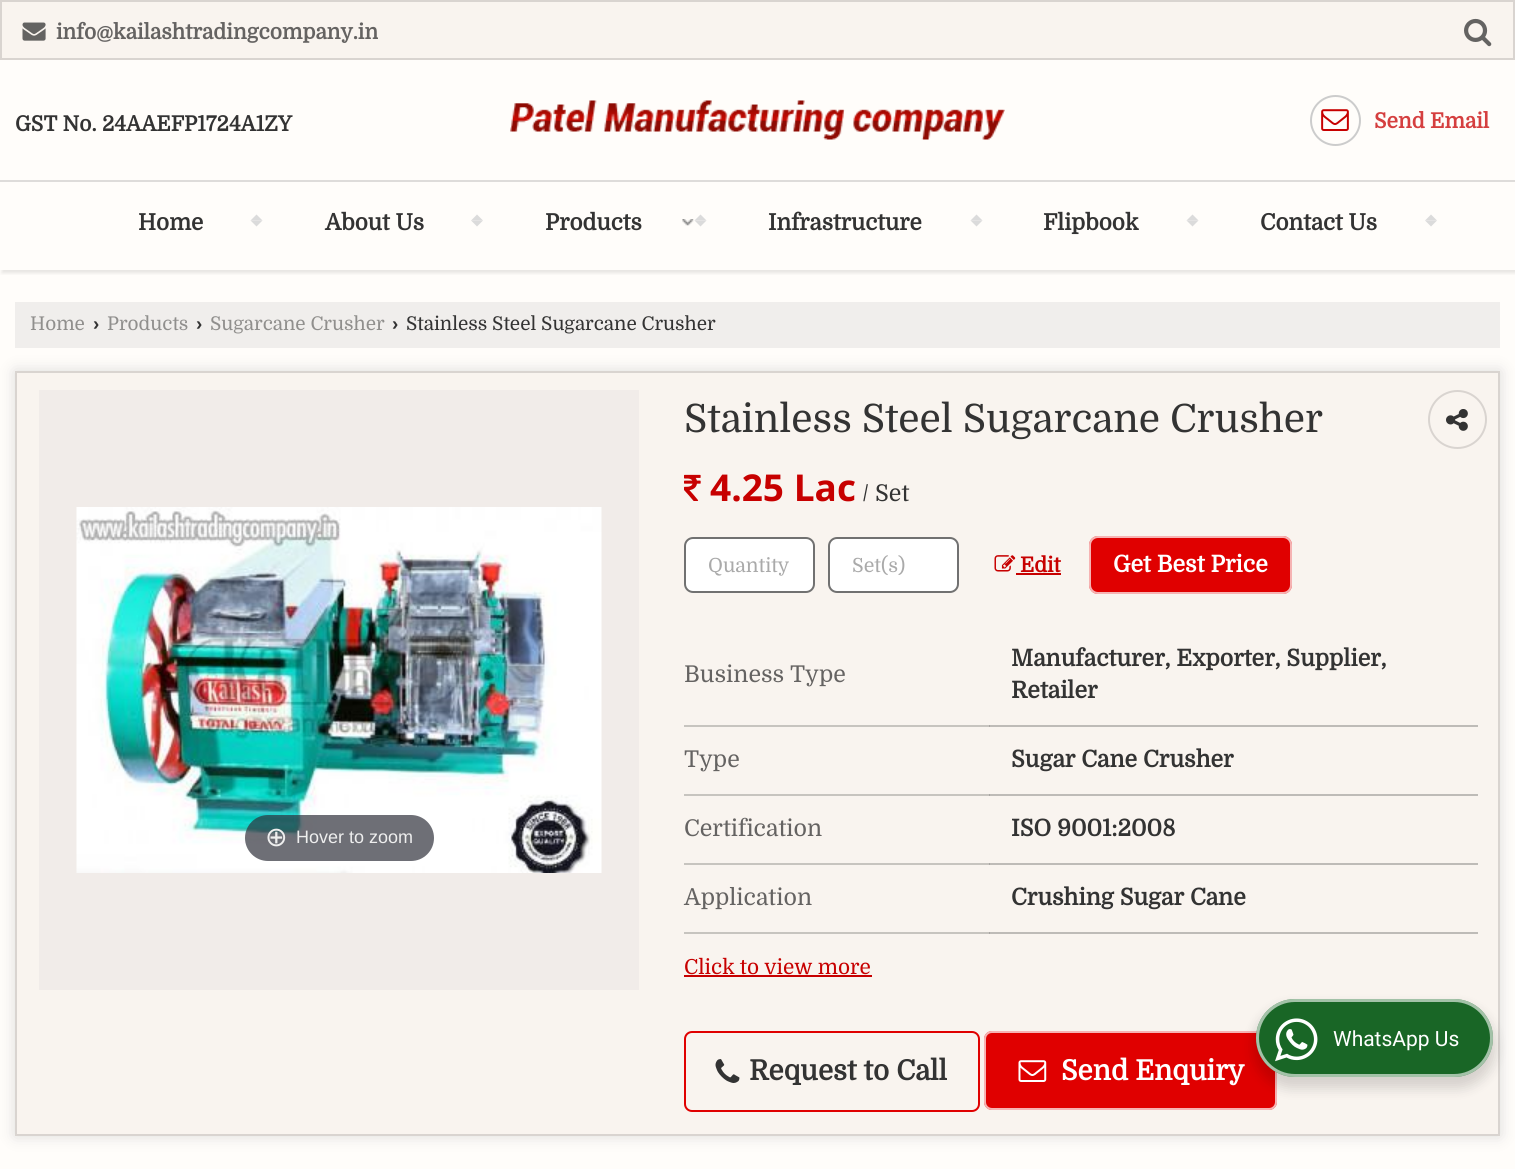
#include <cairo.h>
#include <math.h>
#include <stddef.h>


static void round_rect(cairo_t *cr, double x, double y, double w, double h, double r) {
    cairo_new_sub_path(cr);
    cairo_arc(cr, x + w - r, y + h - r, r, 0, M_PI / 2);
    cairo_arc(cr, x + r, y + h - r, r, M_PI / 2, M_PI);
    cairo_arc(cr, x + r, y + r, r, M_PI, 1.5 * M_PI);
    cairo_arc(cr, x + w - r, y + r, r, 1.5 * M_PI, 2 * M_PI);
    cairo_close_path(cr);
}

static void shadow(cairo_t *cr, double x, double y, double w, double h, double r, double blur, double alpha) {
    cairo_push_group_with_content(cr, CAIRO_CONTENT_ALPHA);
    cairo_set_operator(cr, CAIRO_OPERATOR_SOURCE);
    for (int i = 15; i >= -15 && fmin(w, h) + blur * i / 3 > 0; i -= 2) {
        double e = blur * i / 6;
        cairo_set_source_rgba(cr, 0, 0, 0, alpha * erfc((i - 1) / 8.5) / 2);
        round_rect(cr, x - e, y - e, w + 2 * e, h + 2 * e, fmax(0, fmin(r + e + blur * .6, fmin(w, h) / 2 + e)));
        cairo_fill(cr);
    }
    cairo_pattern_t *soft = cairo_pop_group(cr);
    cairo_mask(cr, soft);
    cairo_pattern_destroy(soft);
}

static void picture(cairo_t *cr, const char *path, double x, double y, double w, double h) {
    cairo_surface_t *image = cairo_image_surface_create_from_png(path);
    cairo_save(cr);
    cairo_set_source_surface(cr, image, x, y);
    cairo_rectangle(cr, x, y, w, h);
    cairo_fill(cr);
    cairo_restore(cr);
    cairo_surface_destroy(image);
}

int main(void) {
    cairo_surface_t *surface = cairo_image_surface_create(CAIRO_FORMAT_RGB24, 1515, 1169);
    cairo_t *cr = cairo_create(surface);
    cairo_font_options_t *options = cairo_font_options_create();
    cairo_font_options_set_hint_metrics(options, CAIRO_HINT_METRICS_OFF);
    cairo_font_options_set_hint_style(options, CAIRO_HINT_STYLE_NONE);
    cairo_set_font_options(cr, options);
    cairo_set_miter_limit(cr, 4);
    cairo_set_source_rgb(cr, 1, 0.992, 0.98);
    cairo_paint(cr);
    cairo_set_source_rgb(cr, 0.976, 0.957, 0.937);
    cairo_rectangle(cr, 1, 1, 1513, 58);
    cairo_fill_preserve(cr);
    cairo_set_source_rgb(cr, 0.851, 0.831, 0.816);
    cairo_stroke(cr);
    picture(cr, "img1.png", 22, 22, 24, 19);
    cairo_select_font_face(cr, "Domine", CAIRO_FONT_SLANT_NORMAL, CAIRO_FONT_WEIGHT_BOLD);
    cairo_set_font_size(cr, 21);
    cairo_set_source_rgb(cr, 0.396, 0.388, 0.384);
    cairo_move_to(cr, 56, 39);
    cairo_show_text(cr, "info@kailashtradingcompany.in");
    picture(cr, "img2.png", 1464, 18, 28, 29);
    cairo_set_source_rgb(cr, 0.2, 0.2, 0.2);
    cairo_move_to(cr, 15, 131);
    cairo_show_text(cr, "GST No. 24AAEFP1724A1ZY");
    picture(cr, "img3.png", 510, 100, 495, 40);
    cairo_arc(cr, 1335.5, 120.5, 24.5, 0, 2 * M_PI);
    cairo_set_source_rgb(cr, 0.8, 0.8, 0.8);
    cairo_stroke(cr);
    picture(cr, "img4.png", 1321, 109, 28, 22);
    cairo_set_source_rgb(cr, 0.835, 0.247, 0.247);
    cairo_move_to(cr, 1374, 128);
    cairo_show_text(cr, "Send Email");
    cairo_save(cr);
    cairo_rectangle(cr, 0, 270, 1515, 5);
    cairo_clip(cr);
    cairo_set_source_rgb(cr, 0, 0, 0);
    shadow(cr, 2, 183, 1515, 90, 0, 2, 0.1);
    cairo_restore(cr);
    cairo_set_source_rgb(cr, 0.871, 0.863, 0.855);
    cairo_rectangle(cr, 0, 180, 1515, 2);
    cairo_fill(cr);
    cairo_set_font_size(cr, 22.5);
    cairo_set_source_rgb(cr, 0.2, 0.2, 0.2);
    cairo_move_to(cr, 138, 230);
    cairo_show_text(cr, "Home");
    cairo_set_source_rgb(cr, 0.859, 0.859, 0.859);
    cairo_new_path(cr);
    cairo_move_to(cr, 262.5, 220.5);
    cairo_line_to(cr, 250.5, 220.5);
    cairo_line_to(cr, 256.5, 214.5);
    cairo_close_path(cr);
    cairo_fill(cr);
    cairo_new_path(cr);
    cairo_move_to(cr, 250.5, 220.5);
    cairo_line_to(cr, 262.5, 220.5);
    cairo_line_to(cr, 256.5, 226.5);
    cairo_close_path(cr);
    cairo_fill(cr);
    cairo_set_source_rgb(cr, 0.2, 0.2, 0.2);
    cairo_move_to(cr, 325, 230);
    cairo_show_text(cr, "About Us");
    cairo_set_source_rgb(cr, 0.859, 0.859, 0.859);
    cairo_new_path(cr);
    cairo_move_to(cr, 483, 220.5);
    cairo_line_to(cr, 471, 220.5);
    cairo_line_to(cr, 477, 214.5);
    cairo_close_path(cr);
    cairo_fill(cr);
    cairo_new_path(cr);
    cairo_move_to(cr, 471, 220.5);
    cairo_line_to(cr, 483, 220.5);
    cairo_line_to(cr, 477, 226.5);
    cairo_close_path(cr);
    cairo_fill(cr);
    cairo_set_source_rgb(cr, 0.2, 0.2, 0.2);
    cairo_move_to(cr, 545, 230);
    cairo_show_text(cr, "Products");
    picture(cr, "img5.png", 682, 219, 12, 7);
    cairo_set_source_rgb(cr, 0.859, 0.859, 0.859);
    cairo_new_path(cr);
    cairo_move_to(cr, 706.5, 220.5);
    cairo_line_to(cr, 694.5, 220.5);
    cairo_line_to(cr, 700.5, 214.5);
    cairo_close_path(cr);
    cairo_fill(cr);
    cairo_new_path(cr);
    cairo_move_to(cr, 694.5, 220.5);
    cairo_line_to(cr, 706.5, 220.5);
    cairo_line_to(cr, 700.5, 226.5);
    cairo_close_path(cr);
    cairo_fill(cr);
    cairo_set_source_rgb(cr, 0.2, 0.2, 0.2);
    cairo_move_to(cr, 768, 230);
    cairo_show_text(cr, "Infrastructure");
    cairo_set_source_rgb(cr, 0.859, 0.859, 0.859);
    cairo_new_path(cr);
    cairo_move_to(cr, 982.5, 220.5);
    cairo_line_to(cr, 970.5, 220.5);
    cairo_line_to(cr, 976.5, 214.5);
    cairo_close_path(cr);
    cairo_fill(cr);
    cairo_new_path(cr);
    cairo_move_to(cr, 970.5, 220.5);
    cairo_line_to(cr, 982.5, 220.5);
    cairo_line_to(cr, 976.5, 226.5);
    cairo_close_path(cr);
    cairo_fill(cr);
    cairo_set_source_rgb(cr, 0.2, 0.2, 0.2);
    cairo_move_to(cr, 1043, 230);
    cairo_show_text(cr, "Flipbook");
    cairo_set_source_rgb(cr, 0.859, 0.859, 0.859);
    cairo_new_path(cr);
    cairo_move_to(cr, 1198.5, 220.5);
    cairo_line_to(cr, 1186.5, 220.5);
    cairo_line_to(cr, 1192.5, 214.5);
    cairo_close_path(cr);
    cairo_fill(cr);
    cairo_new_path(cr);
    cairo_move_to(cr, 1186.5, 220.5);
    cairo_line_to(cr, 1198.5, 220.5);
    cairo_line_to(cr, 1192.5, 226.5);
    cairo_close_path(cr);
    cairo_fill(cr);
    cairo_set_source_rgb(cr, 0.2, 0.2, 0.2);
    cairo_move_to(cr, 1260, 230);
    cairo_show_text(cr, "Contact Us");
    cairo_set_source_rgb(cr, 0.859, 0.859, 0.859);
    cairo_new_path(cr);
    cairo_move_to(cr, 1437, 220.5);
    cairo_line_to(cr, 1425, 220.5);
    cairo_line_to(cr, 1431, 214.5);
    cairo_close_path(cr);
    cairo_fill(cr);
    cairo_new_path(cr);
    cairo_move_to(cr, 1425, 220.5);
    cairo_line_to(cr, 1437, 220.5);
    cairo_line_to(cr, 1431, 226.5);
    cairo_close_path(cr);
    cairo_fill(cr);
    cairo_set_source_rgb(cr, 0.941, 0.933, 0.922);
    cairo_rectangle(cr, 15, 302, 1485, 46);
    cairo_fill(cr);
    cairo_select_font_face(cr, "Domine", CAIRO_FONT_SLANT_NORMAL, CAIRO_FONT_WEIGHT_NORMAL);
    cairo_set_font_size(cr, 18.9);
    cairo_set_source_rgb(cr, 0.565, 0.561, 0.553);
    cairo_move_to(cr, 30, 330);
    cairo_show_text(cr, "Home");
    cairo_select_font_face(cr, "Liberation Sans", CAIRO_FONT_SLANT_NORMAL, CAIRO_FONT_WEIGHT_BOLD);
    cairo_set_source_rgb(cr, 0.2, 0.2, 0.2);
    cairo_move_to(cr, 93, 330);
    cairo_show_text(cr, "›");
    cairo_select_font_face(cr, "Domine", CAIRO_FONT_SLANT_NORMAL, CAIRO_FONT_WEIGHT_NORMAL);
    cairo_set_source_rgb(cr, 0.565, 0.561, 0.553);
    cairo_move_to(cr, 107, 330);
    cairo_show_text(cr, "Products");
    cairo_select_font_face(cr, "Liberation Sans", CAIRO_FONT_SLANT_NORMAL, CAIRO_FONT_WEIGHT_BOLD);
    cairo_set_source_rgb(cr, 0.2, 0.2, 0.2);
    cairo_move_to(cr, 196, 330);
    cairo_show_text(cr, "›");
    cairo_select_font_face(cr, "Domine", CAIRO_FONT_SLANT_NORMAL, CAIRO_FONT_WEIGHT_NORMAL);
    cairo_set_source_rgb(cr, 0.565, 0.561, 0.553);
    cairo_move_to(cr, 210, 330);
    cairo_show_text(cr, "Sugarcane Crusher");
    cairo_select_font_face(cr, "Liberation Sans", CAIRO_FONT_SLANT_NORMAL, CAIRO_FONT_WEIGHT_BOLD);
    cairo_set_source_rgb(cr, 0.2, 0.2, 0.2);
    cairo_move_to(cr, 392, 330);
    cairo_show_text(cr, "›");
    cairo_select_font_face(cr, "Domine", CAIRO_FONT_SLANT_NORMAL, CAIRO_FONT_WEIGHT_NORMAL);
    cairo_move_to(cr, 406, 330);
    cairo_show_text(cr, "Stainless Steel Sugarcane Crusher");
    cairo_set_source_rgb(cr, 0.8, 0.8, 0.8);
    shadow(cr, 15, 371, 1485, 765, 0, 7.5, 0.67);
    cairo_set_source_rgb(cr, 0.976, 0.957, 0.937);
    cairo_rectangle(cr, 16, 372, 1483, 763);
    cairo_fill_preserve(cr);
    cairo_set_source_rgb(cr, 0.851, 0.831, 0.816);
    cairo_stroke(cr);
    cairo_set_source_rgb(cr, 0.945, 0.925, 0.914);
    cairo_rectangle(cr, 39, 390, 600, 600);
    cairo_fill(cr);
    picture(cr, "img6.png", 76, 507, 526, 366);
    cairo_set_source_rgba(cr, 0.192, 0.2, 0.239, 0.7);
    round_rect(cr, 245, 815, 189, 46, 23);
    cairo_fill(cr);
    cairo_select_font_face(cr, "DejaVu Sans", CAIRO_FONT_SLANT_NORMAL, CAIRO_FONT_WEIGHT_NORMAL);
    cairo_set_font_size(cr, 27);
    cairo_set_source_rgb(cr, 0.933, 0.933, 0.933);
    cairo_move_to(cr, 265, 846);
    cairo_show_text(cr, "⊕");
    cairo_select_font_face(cr, "Liberation Sans", CAIRO_FONT_SLANT_NORMAL, CAIRO_FONT_WEIGHT_NORMAL);
    cairo_set_font_size(cr, 18);
    cairo_move_to(cr, 296, 843);
    cairo_show_text(cr, "Hover to zoom");
    cairo_select_font_face(cr, "Domine", CAIRO_FONT_SLANT_NORMAL, CAIRO_FONT_WEIGHT_NORMAL);
    cairo_set_font_size(cr, 39);
    cairo_set_source_rgb(cr, 0.2, 0.2, 0.2);
    cairo_move_to(cr, 684, 432);
    cairo_show_text(cr, "Stainless Steel Sugarcane Crusher");
    cairo_new_path(cr);
    cairo_arc(cr, 1457.5, 419.5, 28.5, 0, 2 * M_PI);
    cairo_set_source_rgb(cr, 0.851, 0.831, 0.816);
    cairo_stroke(cr);
    picture(cr, "img7.png", 1446, 409, 22, 22);
    picture(cr, "img8.png", 684, 474, 17, 27);
    cairo_select_font_face(cr, "Open Sans", CAIRO_FONT_SLANT_NORMAL, CAIRO_FONT_WEIGHT_BOLD);
    cairo_set_font_size(cr, 37);
    cairo_set_source_rgb(cr, 0.78, 0, 0);
    cairo_move_to(cr, 710, 501);
    cairo_show_text(cr, "4.25 Lac");
    cairo_select_font_face(cr, "Domine", CAIRO_FONT_SLANT_NORMAL, CAIRO_FONT_WEIGHT_NORMAL);
    cairo_set_font_size(cr, 23.1);
    cairo_set_source_rgb(cr, 0.2, 0.2, 0.2);
    cairo_move_to(cr, 862, 501);
    cairo_show_text(cr, "/ Set");
    cairo_set_source_rgb(cr, 1, 1, 1);
    round_rect(cr, 685, 538, 129, 54, 8);
    cairo_fill_preserve(cr);
    cairo_set_source_rgb(cr, 0.443, 0.443, 0.443);
    cairo_stroke(cr);
    cairo_set_font_size(cr, 19.5);
    cairo_set_source_rgb(cr, 0.667, 0.667, 0.667);
    cairo_move_to(cr, 708, 572);
    cairo_show_text(cr, "Quantity");
    cairo_set_source_rgb(cr, 1, 1, 1);
    round_rect(cr, 829, 538, 129, 54, 8);
    cairo_fill_preserve(cr);
    cairo_set_source_rgb(cr, 0.443, 0.443, 0.443);
    cairo_stroke(cr);
    cairo_set_source_rgb(cr, 0.667, 0.667, 0.667);
    cairo_move_to(cr, 852, 572);
    cairo_show_text(cr, "Set(s)");
    picture(cr, "img9.png", 994, 555, 22, 17);
    cairo_select_font_face(cr, "Domine", CAIRO_FONT_SLANT_NORMAL, CAIRO_FONT_WEIGHT_BOLD);
    cairo_set_font_size(cr, 20.75);
    cairo_set_source_rgb(cr, 0.78, 0, 0);
    cairo_move_to(cr, 1020, 572);
    cairo_show_text(cr, "Edit");
    cairo_rectangle(cr, 1016, 573, 45, 2);
    cairo_fill(cr);
    cairo_set_source_rgb(cr, 0.878, 0, 0);
    round_rect(cr, 1089, 536, 203, 58, 9);
    cairo_fill(cr);
    round_rect(cr, 1090, 537, 201, 56, 8);
    cairo_set_source_rgba(cr, 1, 1, 1, 0.7);
    cairo_stroke(cr);
    cairo_set_font_size(cr, 23.1);
    cairo_set_source_rgb(cr, 1, 1, 1);
    cairo_move_to(cr, 1113, 572);
    cairo_show_text(cr, "Get Best Price");
    cairo_select_font_face(cr, "Domine", CAIRO_FONT_SLANT_NORMAL, CAIRO_FONT_WEIGHT_NORMAL);
    cairo_set_source_rgb(cr, 0.396, 0.388, 0.384);
    cairo_move_to(cr, 684, 682);
    cairo_show_text(cr, "Business Type");
    cairo_set_source_rgb(cr, 0.78, 0.769, 0.749);
    cairo_rectangle(cr, 684, 725, 306, 2);
    cairo_fill(cr);
    cairo_set_source_rgb(cr, 0.745, 0.733, 0.718);
    cairo_rectangle(cr, 989, 725, 489, 2);
    cairo_fill(cr);
    cairo_set_source_rgb(cr, 0.663, 0.651, 0.639);
    cairo_rectangle(cr, 989, 725, 1, 2);
    cairo_fill(cr);
    cairo_select_font_face(cr, "Domine", CAIRO_FONT_SLANT_NORMAL, CAIRO_FONT_WEIGHT_BOLD);
    cairo_set_source_rgb(cr, 0.2, 0.2, 0.2);
    cairo_move_to(cr, 1011, 666);
    cairo_show_text(cr, "Manufacturer, Exporter, Supplier,");
    cairo_move_to(cr, 1011, 698);
    cairo_show_text(cr, "Retailer");
    cairo_select_font_face(cr, "Domine", CAIRO_FONT_SLANT_NORMAL, CAIRO_FONT_WEIGHT_NORMAL);
    cairo_set_source_rgb(cr, 0.396, 0.388, 0.384);
    cairo_move_to(cr, 684, 767);
    cairo_show_text(cr, "Type");
    cairo_set_source_rgb(cr, 0.78, 0.769, 0.749);
    cairo_rectangle(cr, 684, 794, 306, 2);
    cairo_fill(cr);
    cairo_set_source_rgb(cr, 0.745, 0.733, 0.718);
    cairo_rectangle(cr, 989, 794, 489, 2);
    cairo_fill(cr);
    cairo_set_source_rgb(cr, 0.663, 0.651, 0.639);
    cairo_rectangle(cr, 989, 794, 1, 2);
    cairo_fill(cr);
    cairo_select_font_face(cr, "Domine", CAIRO_FONT_SLANT_NORMAL, CAIRO_FONT_WEIGHT_BOLD);
    cairo_set_source_rgb(cr, 0.2, 0.2, 0.2);
    cairo_move_to(cr, 1011, 767);
    cairo_show_text(cr, "Sugar Cane Crusher");
    cairo_select_font_face(cr, "Domine", CAIRO_FONT_SLANT_NORMAL, CAIRO_FONT_WEIGHT_NORMAL);
    cairo_set_source_rgb(cr, 0.396, 0.388, 0.384);
    cairo_move_to(cr, 684, 836);
    cairo_show_text(cr, "Certification");
    cairo_set_source_rgb(cr, 0.78, 0.769, 0.749);
    cairo_rectangle(cr, 684, 863, 306, 2);
    cairo_fill(cr);
    cairo_set_source_rgb(cr, 0.745, 0.733, 0.718);
    cairo_rectangle(cr, 989, 863, 489, 2);
    cairo_fill(cr);
    cairo_set_source_rgb(cr, 0.663, 0.651, 0.639);
    cairo_rectangle(cr, 989, 863, 1, 2);
    cairo_fill(cr);
    cairo_select_font_face(cr, "Domine", CAIRO_FONT_SLANT_NORMAL, CAIRO_FONT_WEIGHT_BOLD);
    cairo_set_source_rgb(cr, 0.2, 0.2, 0.2);
    cairo_move_to(cr, 1011, 836);
    cairo_show_text(cr, "ISO 9001:2008");
    cairo_select_font_face(cr, "Domine", CAIRO_FONT_SLANT_NORMAL, CAIRO_FONT_WEIGHT_NORMAL);
    cairo_set_source_rgb(cr, 0.396, 0.388, 0.384);
    cairo_move_to(cr, 684, 905);
    cairo_show_text(cr, "Application");
    cairo_set_source_rgb(cr, 0.78, 0.769, 0.749);
    cairo_rectangle(cr, 684, 932, 306, 2);
    cairo_fill(cr);
    cairo_set_source_rgb(cr, 0.745, 0.733, 0.718);
    cairo_rectangle(cr, 989, 932, 489, 2);
    cairo_fill(cr);
    cairo_set_source_rgb(cr, 0.663, 0.651, 0.639);
    cairo_rectangle(cr, 989, 932, 1, 2);
    cairo_fill(cr);
    cairo_select_font_face(cr, "Domine", CAIRO_FONT_SLANT_NORMAL, CAIRO_FONT_WEIGHT_BOLD);
    cairo_set_source_rgb(cr, 0.2, 0.2, 0.2);
    cairo_move_to(cr, 1011, 905);
    cairo_show_text(cr, "Crushing Sugar Cane");
    cairo_select_font_face(cr, "Domine", CAIRO_FONT_SLANT_NORMAL, CAIRO_FONT_WEIGHT_NORMAL);
    cairo_set_font_size(cr, 20.75);
    cairo_set_source_rgb(cr, 0.78, 0, 0);
    cairo_move_to(cr, 684, 974);
    cairo_show_text(cr, "Click to view more");
    cairo_rectangle(cr, 684, 975, 188, 2);
    cairo_fill(cr);
    round_rect(cr, 685, 1032, 294, 79, 7);
    cairo_set_source_rgb(cr, 0.878, 0, 0);
    cairo_stroke(cr);
    picture(cr, "img10.png", 715, 1059, 25, 24);
    cairo_select_font_face(cr, "Domine", CAIRO_FONT_SLANT_NORMAL, CAIRO_FONT_WEIGHT_BOLD);
    cairo_set_font_size(cr, 27.75);
    cairo_set_source_rgb(cr, 0.2, 0.2, 0.2);
    cairo_move_to(cr, 749, 1080);
    cairo_show_text(cr, "Request to Call");
    cairo_set_source_rgb(cr, 0.878, 0, 0);
    round_rect(cr, 984, 1031, 293, 79, 8);
    cairo_fill(cr);
    round_rect(cr, 985, 1032, 291, 77, 7);
    cairo_set_source_rgba(cr, 1, 1, 1, 0.7);
    cairo_stroke(cr);
    picture(cr, "img11.png", 1018, 1060, 29, 22);
    cairo_set_source_rgb(cr, 1, 1, 1);
    cairo_move_to(cr, 1061, 1080);
    cairo_show_text(cr, "Send Enquiry");
    cairo_set_source_rgb(cr, 0, 0, 0);
    shadow(cr, 1253, 1005, 243, 84, 42, 6, 0.14);
    cairo_set_source_rgb(cr, 0.098, 0.4, 0.149);
    round_rect(cr, 1256, 999, 237, 78, 39);
    cairo_fill(cr);
    round_rect(cr, 1257.5, 1000.5, 234, 75, 37.5);
    cairo_set_source_rgba(cr, 1, 1, 1, 0.6);
    cairo_set_line_width(cr, 3);
    cairo_stroke(cr);
    picture(cr, "img12.png", 1275, 1018, 43, 44);
    cairo_select_font_face(cr, "Roboto", CAIRO_FONT_SLANT_NORMAL, CAIRO_FONT_WEIGHT_NORMAL);
    cairo_set_font_size(cr, 21);
    cairo_set_source_rgb(cr, 1, 1, 1);
    cairo_move_to(cr, 1333, 1046);
    cairo_show_text(cr, "WhatsApp Us");
    cairo_surface_write_to_png(surface, "page.png");
    cairo_font_options_destroy(options);
    cairo_destroy(cr);
    cairo_surface_destroy(surface);
    return 0;
}
